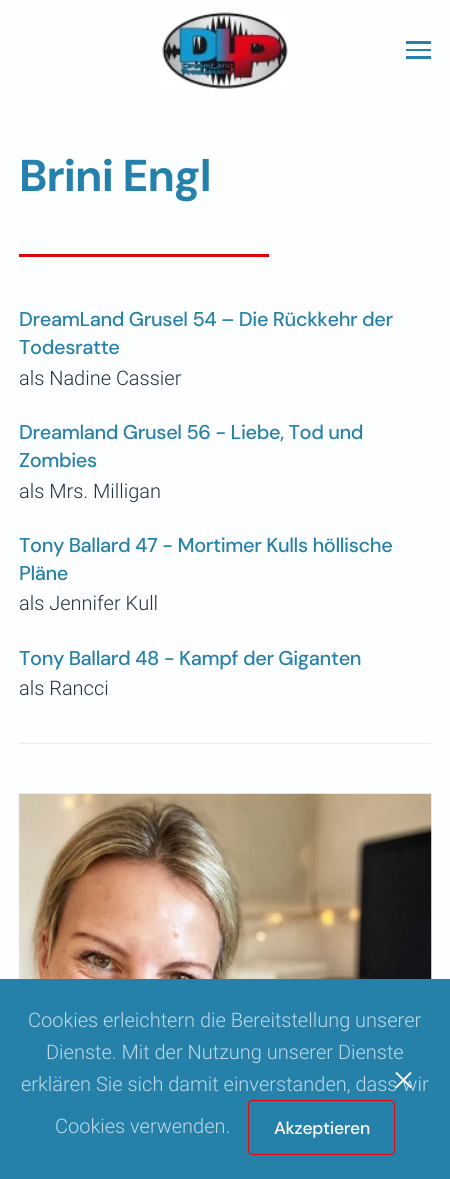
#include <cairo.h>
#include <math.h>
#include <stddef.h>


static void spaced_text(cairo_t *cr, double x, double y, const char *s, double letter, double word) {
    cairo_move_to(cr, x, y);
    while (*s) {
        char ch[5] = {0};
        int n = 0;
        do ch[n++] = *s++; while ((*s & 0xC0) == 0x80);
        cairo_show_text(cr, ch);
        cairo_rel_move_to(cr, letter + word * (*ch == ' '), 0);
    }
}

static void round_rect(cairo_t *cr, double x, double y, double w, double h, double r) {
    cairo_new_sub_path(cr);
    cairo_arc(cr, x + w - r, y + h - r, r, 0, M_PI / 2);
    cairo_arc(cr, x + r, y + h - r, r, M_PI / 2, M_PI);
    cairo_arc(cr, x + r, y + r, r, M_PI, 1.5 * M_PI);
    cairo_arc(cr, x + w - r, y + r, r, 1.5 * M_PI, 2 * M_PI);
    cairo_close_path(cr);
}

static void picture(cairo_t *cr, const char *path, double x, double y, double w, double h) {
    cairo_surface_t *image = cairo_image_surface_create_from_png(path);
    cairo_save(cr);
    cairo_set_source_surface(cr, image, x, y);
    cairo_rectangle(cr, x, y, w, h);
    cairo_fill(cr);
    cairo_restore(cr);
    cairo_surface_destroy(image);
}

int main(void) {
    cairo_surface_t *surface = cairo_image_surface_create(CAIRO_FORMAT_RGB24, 450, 1179);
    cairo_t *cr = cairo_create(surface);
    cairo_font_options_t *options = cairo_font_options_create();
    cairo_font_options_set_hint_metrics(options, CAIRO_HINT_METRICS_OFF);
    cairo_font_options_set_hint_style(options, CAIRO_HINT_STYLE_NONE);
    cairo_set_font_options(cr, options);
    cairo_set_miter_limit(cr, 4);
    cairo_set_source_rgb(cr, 0.992, 0.996, 1);
    cairo_paint(cr);
    picture(cr, "img1.png", 162, 12, 126, 77);
    cairo_set_source_rgb(cr, 0.145, 0.506, 0.667);
    cairo_rectangle(cr, 406, 41, 25, 3);
    cairo_fill(cr);
    cairo_rectangle(cr, 406, 49, 25, 2);
    cairo_fill(cr);
    cairo_rectangle(cr, 406, 56, 25, 3);
    cairo_fill(cr);
    cairo_select_font_face(cr, "DM Sans", CAIRO_FONT_SLANT_NORMAL, CAIRO_FONT_WEIGHT_BOLD);
    cairo_set_font_size(cr, 44.5);
    spaced_text(cr, 19, 191, "Brini Engl", -0.9, 0);
    cairo_set_source_rgb(cr, 0.886, 0.02, 0.047);
    cairo_rectangle(cr, 19, 254, 250, 3);
    cairo_fill(cr);
    cairo_select_font_face(cr, "DM Sans Medium", CAIRO_FONT_SLANT_NORMAL, CAIRO_FONT_WEIGHT_NORMAL);
    cairo_set_font_size(cr, 20);
    cairo_set_source_rgb(cr, 0.145, 0.506, 0.667);
    spaced_text(cr, 19, 326, "DreamLand Grusel 54 – Die Rückkehr der", -0.4, 0);
    spaced_text(cr, 19, 354, "Todesratte", -0.4, 0);
    cairo_select_font_face(cr, "Roboto Light", CAIRO_FONT_SLANT_NORMAL, CAIRO_FONT_WEIGHT_NORMAL);
    cairo_set_source_rgb(cr, 0.133, 0.188, 0.275);
    cairo_move_to(cr, 19, 385);
    cairo_show_text(cr, "als Nadine Cassier");
    cairo_select_font_face(cr, "DM Sans Medium", CAIRO_FONT_SLANT_NORMAL, CAIRO_FONT_WEIGHT_NORMAL);
    cairo_set_source_rgb(cr, 0.145, 0.506, 0.667);
    spaced_text(cr, 19, 439, "Dreamland Grusel 56 - Liebe, Tod und", -0.4, 0);
    spaced_text(cr, 19, 467, "Zombies", -0.4, 0);
    cairo_select_font_face(cr, "Roboto Light", CAIRO_FONT_SLANT_NORMAL, CAIRO_FONT_WEIGHT_NORMAL);
    cairo_set_source_rgb(cr, 0.133, 0.188, 0.275);
    cairo_move_to(cr, 19, 498);
    cairo_show_text(cr, "als Mrs. Milligan");
    cairo_select_font_face(cr, "DM Sans Medium", CAIRO_FONT_SLANT_NORMAL, CAIRO_FONT_WEIGHT_NORMAL);
    cairo_set_source_rgb(cr, 0.145, 0.506, 0.667);
    spaced_text(cr, 19, 552, "Tony Ballard 47 - Mortimer Kulls höllische", -0.4, 0);
    spaced_text(cr, 19, 580, "Pläne", -0.4, 0);
    cairo_select_font_face(cr, "Roboto Light", CAIRO_FONT_SLANT_NORMAL, CAIRO_FONT_WEIGHT_NORMAL);
    cairo_set_source_rgb(cr, 0.133, 0.188, 0.275);
    cairo_move_to(cr, 19, 610);
    cairo_show_text(cr, "als Jennifer Kull");
    cairo_select_font_face(cr, "DM Sans Medium", CAIRO_FONT_SLANT_NORMAL, CAIRO_FONT_WEIGHT_NORMAL);
    cairo_set_source_rgb(cr, 0.145, 0.506, 0.667);
    spaced_text(cr, 19, 665, "Tony Ballard 48 - Kampf der Giganten", -0.4, 0);
    cairo_select_font_face(cr, "Roboto Light", CAIRO_FONT_SLANT_NORMAL, CAIRO_FONT_WEIGHT_NORMAL);
    cairo_set_source_rgb(cr, 0.133, 0.188, 0.275);
    cairo_move_to(cr, 19, 695);
    cairo_show_text(cr, "als Rancci");
    cairo_set_source_rgb(cr, 0.922, 0.925, 0.929);
    cairo_rectangle(cr, 19, 743, 412, 1);
    cairo_fill(cr);
    picture(cr, "img2.png", 18, 793, 414, 186);
    cairo_set_source_rgb(cr, 0.145, 0.506, 0.667);
    cairo_rectangle(cr, 0, 979, 450, 200);
    cairo_fill(cr);
    cairo_set_source_rgb(cr, 0.745, 0.851, 0.902);
    cairo_move_to(cr, 28, 1027);
    cairo_show_text(cr, "Cookies erleichtern die Bereitstellung unserer");
    cairo_move_to(cr, 46, 1059);
    cairo_show_text(cr, "Dienste. Mit der Nutzung unserer Dienste");
    cairo_move_to(cr, 21, 1091);
    cairo_show_text(cr, "erklären Sie sich damit einverstanden, dass wir");
    cairo_new_path(cr);
    cairo_move_to(cr, 396, 1072.5);
    cairo_line_to(cr, 411, 1087.5);
    cairo_move_to(cr, 411, 1072.5);
    cairo_line_to(cr, 396, 1087.5);
    cairo_set_source_rgb(cr, 1, 1, 1);
    cairo_set_line_width(cr, 1.9);
    cairo_stroke(cr);
    cairo_set_source_rgb(cr, 0.745, 0.851, 0.902);
    cairo_move_to(cr, 55, 1133);
    cairo_show_text(cr, "Cookies verwenden.");
    round_rect(cr, 248.5, 1100.5, 146, 54, 3.5);
    cairo_set_source_rgb(cr, 0.886, 0.02, 0.047);
    cairo_set_line_width(cr, 1);
    cairo_stroke(cr);
    cairo_select_font_face(cr, "DM Sans Medium", CAIRO_FONT_SLANT_NORMAL, CAIRO_FONT_WEIGHT_NORMAL);
    cairo_set_font_size(cr, 17.5);
    cairo_set_source_rgb(cr, 1, 1, 1);
    spaced_text(cr, 274, 1134, "Akzeptieren", -0.3, 0);
    cairo_surface_write_to_png(surface, "page.png");
    cairo_font_options_destroy(options);
    cairo_destroy(cr);
    cairo_surface_destroy(surface);
    return 0;
}
